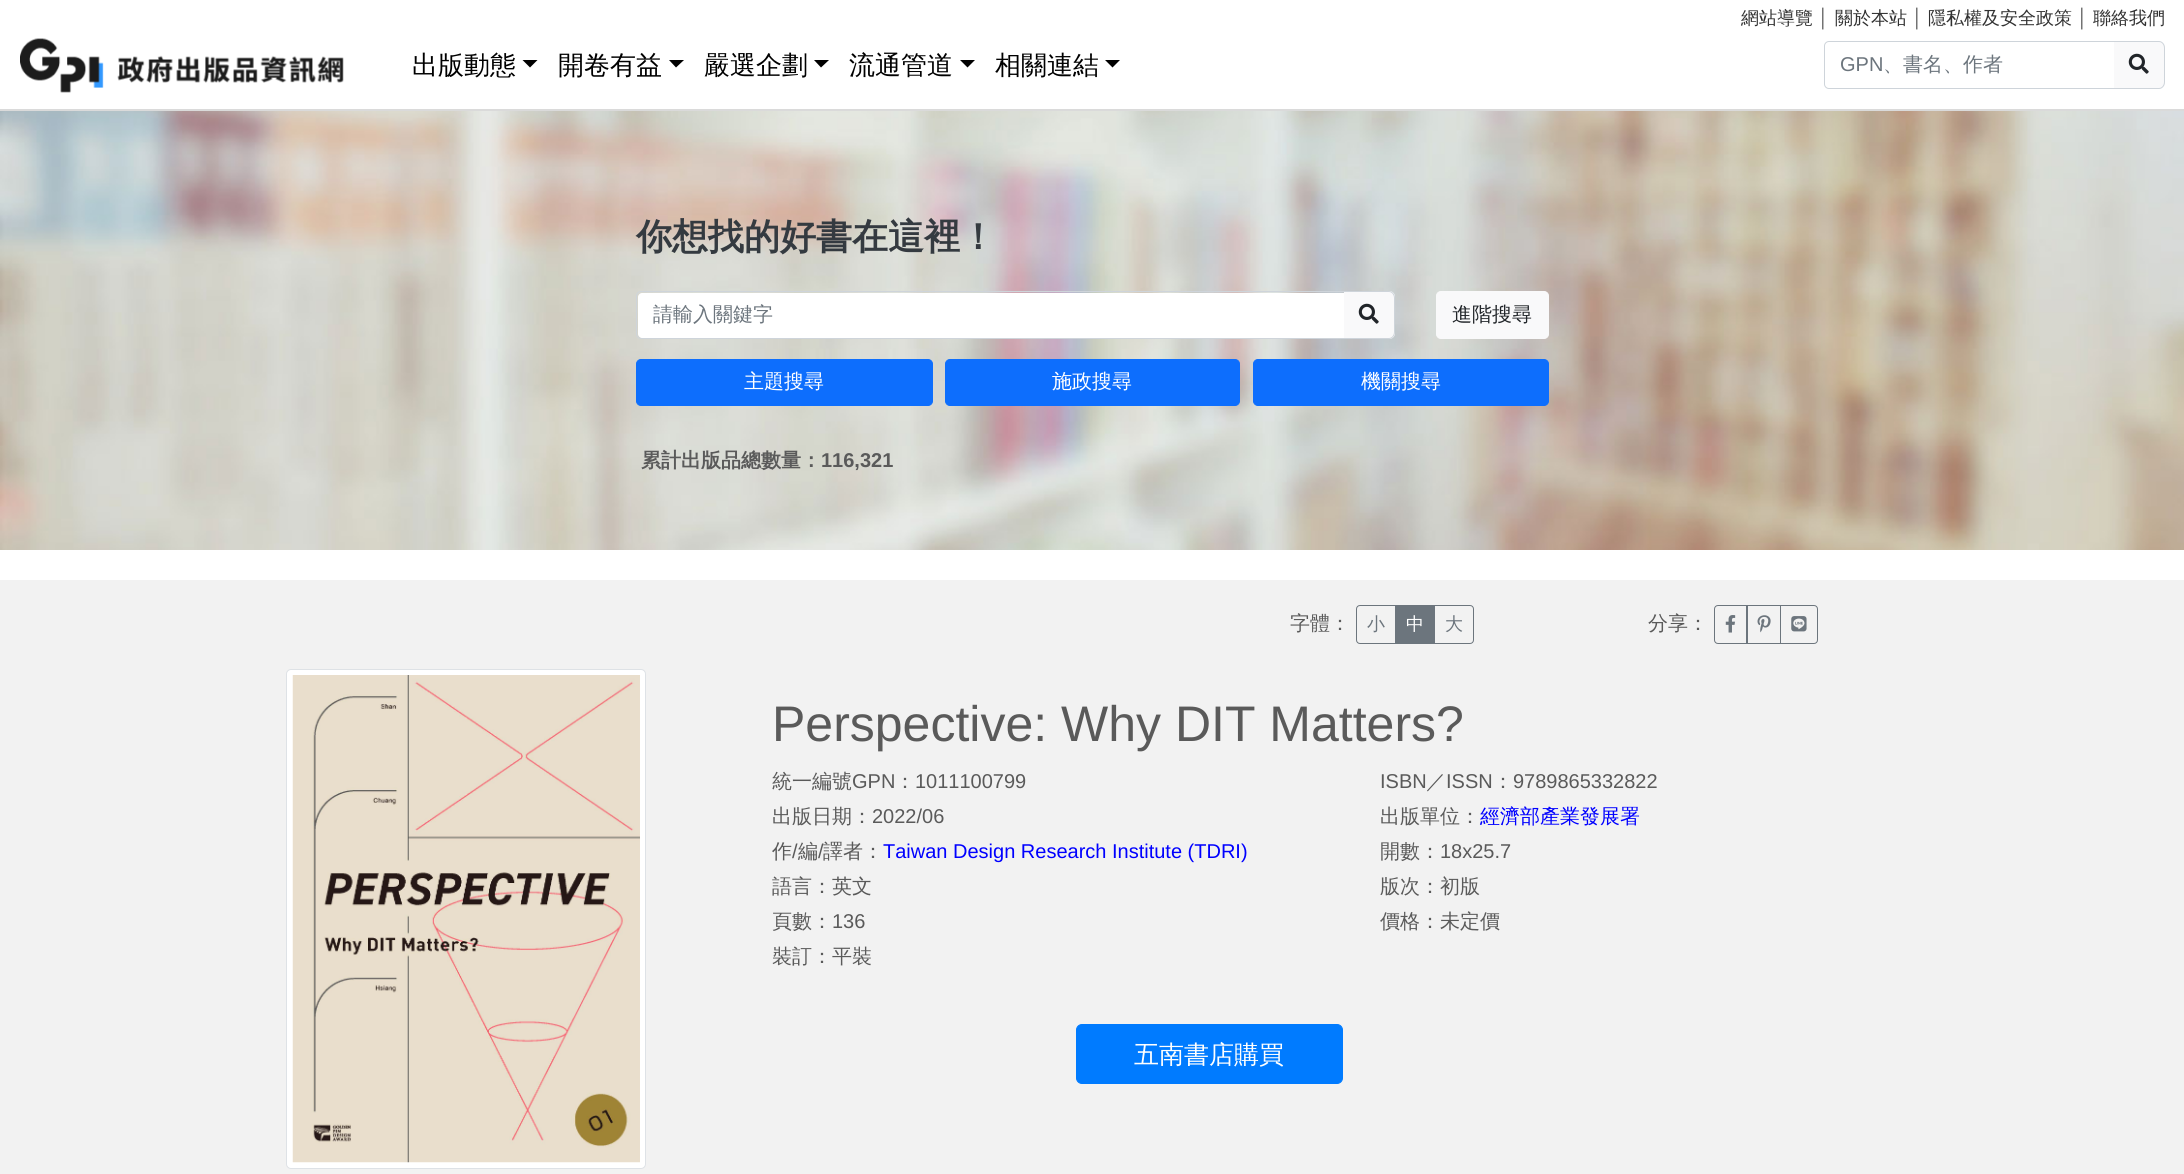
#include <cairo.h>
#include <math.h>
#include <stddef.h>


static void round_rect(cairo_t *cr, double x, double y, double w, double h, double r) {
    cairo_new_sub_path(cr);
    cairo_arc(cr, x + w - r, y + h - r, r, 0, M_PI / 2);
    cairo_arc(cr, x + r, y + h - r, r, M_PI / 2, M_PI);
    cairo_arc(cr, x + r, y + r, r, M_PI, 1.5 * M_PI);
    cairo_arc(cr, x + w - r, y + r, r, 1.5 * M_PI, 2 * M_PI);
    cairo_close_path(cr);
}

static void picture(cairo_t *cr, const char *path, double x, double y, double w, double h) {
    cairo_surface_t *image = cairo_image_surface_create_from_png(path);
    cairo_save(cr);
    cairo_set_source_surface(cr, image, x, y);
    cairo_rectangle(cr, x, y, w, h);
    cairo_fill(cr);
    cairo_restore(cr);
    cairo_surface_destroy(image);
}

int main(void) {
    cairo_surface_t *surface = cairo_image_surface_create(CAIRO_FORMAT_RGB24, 2184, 1174);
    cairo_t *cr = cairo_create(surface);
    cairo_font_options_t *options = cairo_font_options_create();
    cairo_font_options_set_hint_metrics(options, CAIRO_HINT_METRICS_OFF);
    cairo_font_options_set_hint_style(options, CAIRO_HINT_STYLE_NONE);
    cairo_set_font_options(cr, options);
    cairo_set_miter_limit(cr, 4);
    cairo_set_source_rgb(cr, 1, 1, 1);
    cairo_paint(cr);
    cairo_set_source_rgb(cr, 0.855, 0.855, 0.855);
    cairo_rectangle(cr, 0, 109, 2184, 2);
    cairo_fill(cr);
    cairo_select_font_face(cr, "WenQuanYi Zen Hei Medium", CAIRO_FONT_SLANT_NORMAL, CAIRO_FONT_WEIGHT_NORMAL);
    cairo_set_font_size(cr, 18);
    cairo_set_source_rgb(cr, 0.196, 0.196, 0.196);
    cairo_move_to(cr, 1741, 24);
    cairo_show_text(cr, "網站導覽");
    cairo_select_font_face(cr, "Liberation Sans", CAIRO_FONT_SLANT_NORMAL, CAIRO_FONT_WEIGHT_NORMAL);
    cairo_set_source_rgb(cr, 0.353, 0.353, 0.353);
    cairo_move_to(cr, 1818, 24);
    cairo_show_text(cr, "│");
    cairo_select_font_face(cr, "WenQuanYi Zen Hei Medium", CAIRO_FONT_SLANT_NORMAL, CAIRO_FONT_WEIGHT_NORMAL);
    cairo_set_source_rgb(cr, 0.196, 0.196, 0.196);
    cairo_move_to(cr, 1835, 24);
    cairo_show_text(cr, "關於本站");
    cairo_select_font_face(cr, "Liberation Sans", CAIRO_FONT_SLANT_NORMAL, CAIRO_FONT_WEIGHT_NORMAL);
    cairo_set_source_rgb(cr, 0.353, 0.353, 0.353);
    cairo_move_to(cr, 1912, 24);
    cairo_show_text(cr, "│");
    cairo_select_font_face(cr, "WenQuanYi Zen Hei Medium", CAIRO_FONT_SLANT_NORMAL, CAIRO_FONT_WEIGHT_NORMAL);
    cairo_set_source_rgb(cr, 0.196, 0.196, 0.196);
    cairo_move_to(cr, 1928, 24);
    cairo_show_text(cr, "隱私權及安全政策");
    cairo_select_font_face(cr, "Liberation Sans", CAIRO_FONT_SLANT_NORMAL, CAIRO_FONT_WEIGHT_NORMAL);
    cairo_set_source_rgb(cr, 0.353, 0.353, 0.353);
    cairo_move_to(cr, 2077, 24);
    cairo_show_text(cr, "│");
    cairo_select_font_face(cr, "WenQuanYi Zen Hei Medium", CAIRO_FONT_SLANT_NORMAL, CAIRO_FONT_WEIGHT_NORMAL);
    cairo_set_source_rgb(cr, 0.196, 0.196, 0.196);
    cairo_move_to(cr, 2093, 24);
    cairo_show_text(cr, "聯絡我們");
    picture(cr, "img1.png", 20, 38, 324, 55);
    cairo_set_font_size(cr, 26);
    cairo_set_source_rgb(cr, 0, 0, 0);
    cairo_move_to(cr, 412, 74);
    cairo_show_text(cr, "出版動態");
    cairo_new_path(cr);
    cairo_move_to(cr, 522.5, 60);
    cairo_line_to(cr, 537.5, 60);
    cairo_line_to(cr, 530, 67.5);
    cairo_close_path(cr);
    cairo_fill(cr);
    cairo_move_to(cr, 558, 74);
    cairo_show_text(cr, "開卷有益");
    cairo_new_path(cr);
    cairo_move_to(cr, 669, 60);
    cairo_line_to(cr, 684, 60);
    cairo_line_to(cr, 676, 67.5);
    cairo_close_path(cr);
    cairo_fill(cr);
    cairo_move_to(cr, 704, 74);
    cairo_show_text(cr, "嚴選企劃");
    cairo_new_path(cr);
    cairo_move_to(cr, 814, 60);
    cairo_line_to(cr, 829, 60);
    cairo_line_to(cr, 821, 67.5);
    cairo_close_path(cr);
    cairo_fill(cr);
    cairo_move_to(cr, 849, 74);
    cairo_show_text(cr, "流通管道");
    cairo_new_path(cr);
    cairo_move_to(cr, 960, 60);
    cairo_line_to(cr, 975, 60);
    cairo_line_to(cr, 967.5, 67.5);
    cairo_close_path(cr);
    cairo_fill(cr);
    cairo_move_to(cr, 995, 74);
    cairo_show_text(cr, "相關連結");
    cairo_new_path(cr);
    cairo_move_to(cr, 1105, 60);
    cairo_line_to(cr, 1120, 60);
    cairo_line_to(cr, 1112.5, 67.5);
    cairo_close_path(cr);
    cairo_fill(cr);
    cairo_new_path(cr);
    cairo_move_to(cr, 1829, 41.5);
    cairo_line_to(cr, 2114.5, 41.5);
    cairo_line_to(cr, 2114.5, 88.5);
    cairo_line_to(cr, 1829, 88.5);
    cairo_curve_to(cr, 1826.5, 88.5, 1824.5, 86.5, 1824.5, 84);
    cairo_line_to(cr, 1824.5, 46);
    cairo_curve_to(cr, 1824.5, 43.5, 1826.5, 41.5, 1829, 41.5);
    cairo_close_path(cr);
    cairo_set_source_rgb(cr, 0.808, 0.831, 0.855);
    cairo_set_line_width(cr, 1);
    cairo_stroke(cr);
    cairo_select_font_face(cr, "Liberation Sans", CAIRO_FONT_SLANT_NORMAL, CAIRO_FONT_WEIGHT_NORMAL);
    cairo_set_font_size(cr, 20);
    cairo_set_source_rgb(cr, 0.424, 0.459, 0.49);
    cairo_move_to(cr, 1840, 71);
    cairo_show_text(cr, "GPN");
    cairo_select_font_face(cr, "WenQuanYi Zen Hei Medium", CAIRO_FONT_SLANT_NORMAL, CAIRO_FONT_WEIGHT_NORMAL);
    cairo_move_to(cr, 1883, 71);
    cairo_show_text(cr, "、書名、作者");
    cairo_set_source_rgb(cr, 0.973, 0.976, 0.98);
    cairo_new_path(cr);
    cairo_move_to(cr, 2114, 41);
    cairo_line_to(cr, 2159, 41);
    cairo_curve_to(cr, 2162.5, 41, 2165, 43.5, 2165, 47);
    cairo_line_to(cr, 2165, 83);
    cairo_curve_to(cr, 2165, 86.5, 2162.5, 89, 2159, 89);
    cairo_line_to(cr, 2114, 89);
    cairo_close_path(cr);
    cairo_fill(cr);
    cairo_set_source_rgb(cr, 0.808, 0.831, 0.855);
    cairo_set_fill_rule(cr, CAIRO_FILL_RULE_EVEN_ODD);
    cairo_new_path(cr);
    cairo_move_to(cr, 2114, 41);
    cairo_line_to(cr, 2159, 41);
    cairo_curve_to(cr, 2162, 41, 2165, 44, 2165, 48);
    cairo_line_to(cr, 2165, 82);
    cairo_curve_to(cr, 2165, 86, 2162, 89, 2159, 89);
    cairo_line_to(cr, 2114, 89);
    cairo_close_path(cr);
    cairo_move_to(cr, 2114, 42);
    cairo_line_to(cr, 2159, 42);
    cairo_curve_to(cr, 2162, 42, 2164, 45, 2164, 48);
    cairo_line_to(cr, 2164, 82);
    cairo_curve_to(cr, 2164, 85, 2162, 88, 2159, 88);
    cairo_line_to(cr, 2114, 88);
    cairo_close_path(cr);
    cairo_fill(cr);
    picture(cr, "img2.png", 2128, 53, 21, 21);
    picture(cr, "img3.png", 0, 111, 2184, 439);
    cairo_select_font_face(cr, "WenQuanYi Zen Hei", CAIRO_FONT_SLANT_NORMAL, CAIRO_FONT_WEIGHT_BOLD);
    cairo_set_font_size(cr, 36);
    cairo_set_source_rgb(cr, 0.204, 0.227, 0.251);
    cairo_move_to(cr, 636, 249);
    cairo_show_text(cr, "你想找的好書在這裡！");
    cairo_set_source_rgb(cr, 1, 1, 1);
    cairo_new_path(cr);
    cairo_move_to(cr, 642, 293);
    cairo_line_to(cr, 1344, 293);
    cairo_line_to(cr, 1344, 338);
    cairo_line_to(cr, 642, 338);
    cairo_curve_to(cr, 640, 338, 638, 336, 638, 334);
    cairo_line_to(cr, 638, 297);
    cairo_curve_to(cr, 638, 295, 640, 293, 642, 293);
    cairo_close_path(cr);
    cairo_fill(cr);
    cairo_new_path(cr);
    cairo_move_to(cr, 641, 291.5);
    cairo_line_to(cr, 1344.5, 291.5);
    cairo_line_to(cr, 1344.5, 338.5);
    cairo_line_to(cr, 641, 338.5);
    cairo_curve_to(cr, 638.5, 338.5, 636.5, 336.5, 636.5, 334);
    cairo_line_to(cr, 636.5, 296);
    cairo_curve_to(cr, 636.5, 293.5, 638.5, 291.5, 641, 291.5);
    cairo_close_path(cr);
    cairo_set_source_rgb(cr, 0.808, 0.831, 0.855);
    cairo_stroke(cr);
    cairo_select_font_face(cr, "WenQuanYi Zen Hei Medium", CAIRO_FONT_SLANT_NORMAL, CAIRO_FONT_WEIGHT_NORMAL);
    cairo_set_font_size(cr, 20);
    cairo_set_source_rgb(cr, 0.424, 0.459, 0.49);
    cairo_move_to(cr, 653, 321);
    cairo_show_text(cr, "請輸入關鍵字");
    cairo_set_source_rgb(cr, 0.973, 0.976, 0.98);
    cairo_new_path(cr);
    cairo_move_to(cr, 1344, 291);
    cairo_line_to(cr, 1389, 291);
    cairo_curve_to(cr, 1392.5, 291, 1395, 293.5, 1395, 297);
    cairo_line_to(cr, 1395, 333);
    cairo_curve_to(cr, 1395, 336.5, 1392.5, 339, 1389, 339);
    cairo_line_to(cr, 1344, 339);
    cairo_close_path(cr);
    cairo_fill(cr);
    cairo_set_source_rgb(cr, 0.808, 0.831, 0.855);
    cairo_new_path(cr);
    cairo_move_to(cr, 1344, 291);
    cairo_line_to(cr, 1389, 291);
    cairo_curve_to(cr, 1392, 291, 1395, 294, 1395, 298);
    cairo_line_to(cr, 1395, 332);
    cairo_curve_to(cr, 1395, 336, 1392, 339, 1389, 339);
    cairo_line_to(cr, 1344, 339);
    cairo_close_path(cr);
    cairo_move_to(cr, 1344, 292);
    cairo_line_to(cr, 1389, 292);
    cairo_curve_to(cr, 1392, 292, 1394, 295, 1394, 298);
    cairo_line_to(cr, 1394, 332);
    cairo_curve_to(cr, 1394, 335, 1392, 338, 1389, 338);
    cairo_line_to(cr, 1344, 338);
    cairo_close_path(cr);
    cairo_fill(cr);
    picture(cr, "img2.png", 1358, 303, 21, 21);
    cairo_set_source_rgb(cr, 0.973, 0.976, 0.98);
    round_rect(cr, 1436.5, 291.5, 112, 47, 4.5);
    cairo_fill_preserve(cr);
    cairo_stroke(cr);
    cairo_set_source_rgb(cr, 0.129, 0.145, 0.161);
    cairo_move_to(cr, 1452, 321);
    cairo_show_text(cr, "進階搜尋");
    cairo_set_source_rgb(cr, 0.051, 0.431, 0.992);
    round_rect(cr, 636.5, 359.5, 296, 46, 4.5);
    cairo_fill_preserve(cr);
    cairo_stroke(cr);
    cairo_set_source_rgb(cr, 1, 1, 1);
    cairo_move_to(cr, 744, 388);
    cairo_show_text(cr, "主題搜尋");
    cairo_set_source_rgb(cr, 0.051, 0.431, 0.992);
    round_rect(cr, 945.5, 359.5, 294, 46, 4.5);
    cairo_fill_preserve(cr);
    cairo_stroke(cr);
    cairo_set_source_rgb(cr, 1, 1, 1);
    cairo_move_to(cr, 1052, 388);
    cairo_show_text(cr, "施政搜尋");
    cairo_set_source_rgb(cr, 0.051, 0.431, 0.992);
    round_rect(cr, 1253.5, 359.5, 295, 46, 4.5);
    cairo_fill_preserve(cr);
    cairo_stroke(cr);
    cairo_set_source_rgb(cr, 1, 1, 1);
    cairo_move_to(cr, 1361, 388);
    cairo_show_text(cr, "機關搜尋");
    cairo_select_font_face(cr, "WenQuanYi Zen Hei", CAIRO_FONT_SLANT_NORMAL, CAIRO_FONT_WEIGHT_BOLD);
    cairo_set_source_rgb(cr, 0.353, 0.353, 0.353);
    cairo_move_to(cr, 641, 467);
    cairo_show_text(cr, "累計出版品總數量：");
    cairo_select_font_face(cr, "Liberation Sans", CAIRO_FONT_SLANT_NORMAL, CAIRO_FONT_WEIGHT_BOLD);
    cairo_move_to(cr, 821, 467);
    cairo_show_text(cr, "116,321");
    cairo_set_source_rgb(cr, 0.949, 0.949, 0.949);
    cairo_rectangle(cr, 0, 580, 2184, 594);
    cairo_fill(cr);
    cairo_select_font_face(cr, "WenQuanYi Zen Hei Medium", CAIRO_FONT_SLANT_NORMAL, CAIRO_FONT_WEIGHT_NORMAL);
    cairo_set_source_rgb(cr, 0.353, 0.353, 0.353);
    cairo_move_to(cr, 1290, 630);
    cairo_show_text(cr, "字體：");
    cairo_new_path(cr);
    cairo_move_to(cr, 1360, 605.5);
    cairo_line_to(cr, 1395.5, 605.5);
    cairo_line_to(cr, 1395.5, 643.5);
    cairo_line_to(cr, 1360, 643.5);
    cairo_curve_to(cr, 1358, 643.5, 1356.5, 642, 1356.5, 640);
    cairo_line_to(cr, 1356.5, 609);
    cairo_curve_to(cr, 1356.5, 607, 1358, 605.5, 1360, 605.5);
    cairo_close_path(cr);
    cairo_set_source_rgb(cr, 0.424, 0.459, 0.49);
    cairo_stroke(cr);
    cairo_set_font_size(cr, 18);
    cairo_move_to(cr, 1367, 630);
    cairo_show_text(cr, "小");
    cairo_rectangle(cr, 1396, 605, 38, 39);
    cairo_fill(cr);
    cairo_set_source_rgb(cr, 1, 1, 1);
    cairo_move_to(cr, 1406, 630);
    cairo_show_text(cr, "中");
    cairo_new_path(cr);
    cairo_move_to(cr, 1434.5, 605.5);
    cairo_line_to(cr, 1470, 605.5);
    cairo_curve_to(cr, 1472, 605.5, 1473.5, 607, 1473.5, 609);
    cairo_line_to(cr, 1473.5, 640);
    cairo_curve_to(cr, 1473.5, 642, 1472, 643.5, 1470, 643.5);
    cairo_line_to(cr, 1434.5, 643.5);
    cairo_close_path(cr);
    cairo_set_source_rgb(cr, 0.424, 0.459, 0.49);
    cairo_stroke(cr);
    cairo_move_to(cr, 1445, 630);
    cairo_show_text(cr, "大");
    cairo_set_font_size(cr, 20);
    cairo_set_source_rgb(cr, 0.353, 0.353, 0.353);
    cairo_move_to(cr, 1648, 630);
    cairo_show_text(cr, "分享：");
    cairo_new_path(cr);
    cairo_move_to(cr, 1718, 605.5);
    cairo_line_to(cr, 1747.5, 605.5);
    cairo_line_to(cr, 1747.5, 643.5);
    cairo_line_to(cr, 1718, 643.5);
    cairo_curve_to(cr, 1716, 643.5, 1714.5, 642, 1714.5, 640);
    cairo_line_to(cr, 1714.5, 609);
    cairo_curve_to(cr, 1714.5, 607, 1716, 605.5, 1718, 605.5);
    cairo_close_path(cr);
    cairo_set_source_rgb(cr, 0.424, 0.459, 0.49);
    cairo_stroke(cr);
    picture(cr, "img4.png", 1725, 615, 11, 18);
    cairo_rectangle(cr, 1746.5, 605.5, 34, 38);
    cairo_stroke(cr);
    picture(cr, "img5.png", 1757, 615, 14, 18);
    cairo_new_path(cr);
    cairo_move_to(cr, 1780.5, 605.5);
    cairo_line_to(cr, 1814, 605.5);
    cairo_curve_to(cr, 1816, 605.5, 1817.5, 607, 1817.5, 609);
    cairo_line_to(cr, 1817.5, 640);
    cairo_curve_to(cr, 1817.5, 642, 1816, 643.5, 1814, 643.5);
    cairo_line_to(cr, 1780.5, 643.5);
    cairo_close_path(cr);
    cairo_stroke(cr);
    picture(cr, "img6.png", 1791, 616, 16, 16);
    cairo_set_source_rgb(cr, 1, 1, 1);
    round_rect(cr, 286.5, 669.5, 359, 499, 4.5);
    cairo_fill_preserve(cr);
    cairo_set_source_rgb(cr, 0.871, 0.886, 0.902);
    cairo_stroke(cr);
    picture(cr, "img7.png", 292, 675, 348, 488);
    cairo_select_font_face(cr, "Liberation Sans", CAIRO_FONT_SLANT_NORMAL, CAIRO_FONT_WEIGHT_NORMAL);
    cairo_set_font_size(cr, 50);
    cairo_set_source_rgb(cr, 0.353, 0.353, 0.353);
    cairo_move_to(cr, 772, 741);
    cairo_show_text(cr, "Perspective: Why DIT Matters?");
    cairo_select_font_face(cr, "WenQuanYi Zen Hei Medium", CAIRO_FONT_SLANT_NORMAL, CAIRO_FONT_WEIGHT_NORMAL);
    cairo_set_font_size(cr, 20);
    cairo_move_to(cr, 772, 788);
    cairo_show_text(cr, "統一編號");
    cairo_select_font_face(cr, "Liberation Sans", CAIRO_FONT_SLANT_NORMAL, CAIRO_FONT_WEIGHT_NORMAL);
    cairo_move_to(cr, 852, 788);
    cairo_show_text(cr, "GPN");
    cairo_select_font_face(cr, "WenQuanYi Zen Hei Medium", CAIRO_FONT_SLANT_NORMAL, CAIRO_FONT_WEIGHT_NORMAL);
    cairo_move_to(cr, 895, 788);
    cairo_show_text(cr, "：");
    cairo_select_font_face(cr, "Liberation Sans", CAIRO_FONT_SLANT_NORMAL, CAIRO_FONT_WEIGHT_NORMAL);
    cairo_move_to(cr, 915, 788);
    cairo_show_text(cr, "1011100799");
    cairo_select_font_face(cr, "WenQuanYi Zen Hei Medium", CAIRO_FONT_SLANT_NORMAL, CAIRO_FONT_WEIGHT_NORMAL);
    cairo_move_to(cr, 772, 823);
    cairo_show_text(cr, "出版日期：");
    cairo_select_font_face(cr, "Liberation Sans", CAIRO_FONT_SLANT_NORMAL, CAIRO_FONT_WEIGHT_NORMAL);
    cairo_move_to(cr, 872, 823);
    cairo_show_text(cr, "2022/06");
    cairo_select_font_face(cr, "WenQuanYi Zen Hei Medium", CAIRO_FONT_SLANT_NORMAL, CAIRO_FONT_WEIGHT_NORMAL);
    cairo_move_to(cr, 772, 858);
    cairo_show_text(cr, "作");
    cairo_select_font_face(cr, "Liberation Sans", CAIRO_FONT_SLANT_NORMAL, CAIRO_FONT_WEIGHT_NORMAL);
    cairo_move_to(cr, 792, 858);
    cairo_show_text(cr, "/");
    cairo_select_font_face(cr, "WenQuanYi Zen Hei Medium", CAIRO_FONT_SLANT_NORMAL, CAIRO_FONT_WEIGHT_NORMAL);
    cairo_move_to(cr, 798, 858);
    cairo_show_text(cr, "編");
    cairo_select_font_face(cr, "Liberation Sans", CAIRO_FONT_SLANT_NORMAL, CAIRO_FONT_WEIGHT_NORMAL);
    cairo_move_to(cr, 818, 858);
    cairo_show_text(cr, "/");
    cairo_select_font_face(cr, "WenQuanYi Zen Hei Medium", CAIRO_FONT_SLANT_NORMAL, CAIRO_FONT_WEIGHT_NORMAL);
    cairo_move_to(cr, 823, 858);
    cairo_show_text(cr, "譯者：");
    cairo_select_font_face(cr, "Liberation Sans", CAIRO_FONT_SLANT_NORMAL, CAIRO_FONT_WEIGHT_NORMAL);
    cairo_set_source_rgb(cr, 0, 0, 1);
    cairo_move_to(cr, 883, 858);
    cairo_show_text(cr, "Taiwan Design Research Institute (TDRI)");
    cairo_select_font_face(cr, "WenQuanYi Zen Hei Medium", CAIRO_FONT_SLANT_NORMAL, CAIRO_FONT_WEIGHT_NORMAL);
    cairo_set_source_rgb(cr, 0.353, 0.353, 0.353);
    cairo_move_to(cr, 772, 893);
    cairo_show_text(cr, "語言：英文");
    cairo_move_to(cr, 772, 928);
    cairo_show_text(cr, "頁數：");
    cairo_select_font_face(cr, "Liberation Sans", CAIRO_FONT_SLANT_NORMAL, CAIRO_FONT_WEIGHT_NORMAL);
    cairo_move_to(cr, 832, 928);
    cairo_show_text(cr, "136");
    cairo_select_font_face(cr, "WenQuanYi Zen Hei Medium", CAIRO_FONT_SLANT_NORMAL, CAIRO_FONT_WEIGHT_NORMAL);
    cairo_move_to(cr, 772, 963);
    cairo_show_text(cr, "裝訂：平裝");
    cairo_select_font_face(cr, "Liberation Sans", CAIRO_FONT_SLANT_NORMAL, CAIRO_FONT_WEIGHT_NORMAL);
    cairo_move_to(cr, 1380, 788);
    cairo_show_text(cr, "ISBN");
    cairo_select_font_face(cr, "WenQuanYi Zen Hei Medium", CAIRO_FONT_SLANT_NORMAL, CAIRO_FONT_WEIGHT_NORMAL);
    cairo_move_to(cr, 1426, 788);
    cairo_show_text(cr, "／");
    cairo_select_font_face(cr, "Liberation Sans", CAIRO_FONT_SLANT_NORMAL, CAIRO_FONT_WEIGHT_NORMAL);
    cairo_move_to(cr, 1446, 788);
    cairo_show_text(cr, "ISSN");
    cairo_select_font_face(cr, "WenQuanYi Zen Hei Medium", CAIRO_FONT_SLANT_NORMAL, CAIRO_FONT_WEIGHT_NORMAL);
    cairo_move_to(cr, 1493, 788);
    cairo_show_text(cr, "：");
    cairo_select_font_face(cr, "Liberation Sans", CAIRO_FONT_SLANT_NORMAL, CAIRO_FONT_WEIGHT_NORMAL);
    cairo_move_to(cr, 1513, 788);
    cairo_show_text(cr, "9789865332822");
    cairo_select_font_face(cr, "WenQuanYi Zen Hei Medium", CAIRO_FONT_SLANT_NORMAL, CAIRO_FONT_WEIGHT_NORMAL);
    cairo_move_to(cr, 1380, 823);
    cairo_show_text(cr, "出版單位：");
    cairo_set_source_rgb(cr, 0, 0, 1);
    cairo_move_to(cr, 1480, 823);
    cairo_show_text(cr, "經濟部產業發展署");
    cairo_set_source_rgb(cr, 0.353, 0.353, 0.353);
    cairo_move_to(cr, 1380, 858);
    cairo_show_text(cr, "開數：");
    cairo_select_font_face(cr, "Liberation Sans", CAIRO_FONT_SLANT_NORMAL, CAIRO_FONT_WEIGHT_NORMAL);
    cairo_move_to(cr, 1440, 858);
    cairo_show_text(cr, "18x25.7");
    cairo_select_font_face(cr, "WenQuanYi Zen Hei Medium", CAIRO_FONT_SLANT_NORMAL, CAIRO_FONT_WEIGHT_NORMAL);
    cairo_move_to(cr, 1380, 893);
    cairo_show_text(cr, "版次：初版");
    cairo_move_to(cr, 1380, 928);
    cairo_show_text(cr, "價格：未定價");
    cairo_set_source_rgb(cr, 0, 0.482, 1);
    round_rect(cr, 1076.5, 1024.5, 266, 59, 5.5);
    cairo_fill_preserve(cr);
    cairo_stroke(cr);
    cairo_set_font_size(cr, 25);
    cairo_set_source_rgb(cr, 1, 1, 1);
    cairo_move_to(cr, 1134, 1063);
    cairo_show_text(cr, "五南書店購買");
    cairo_surface_write_to_png(surface, "page.png");
    cairo_font_options_destroy(options);
    cairo_destroy(cr);
    cairo_surface_destroy(surface);
    return 0;
}
